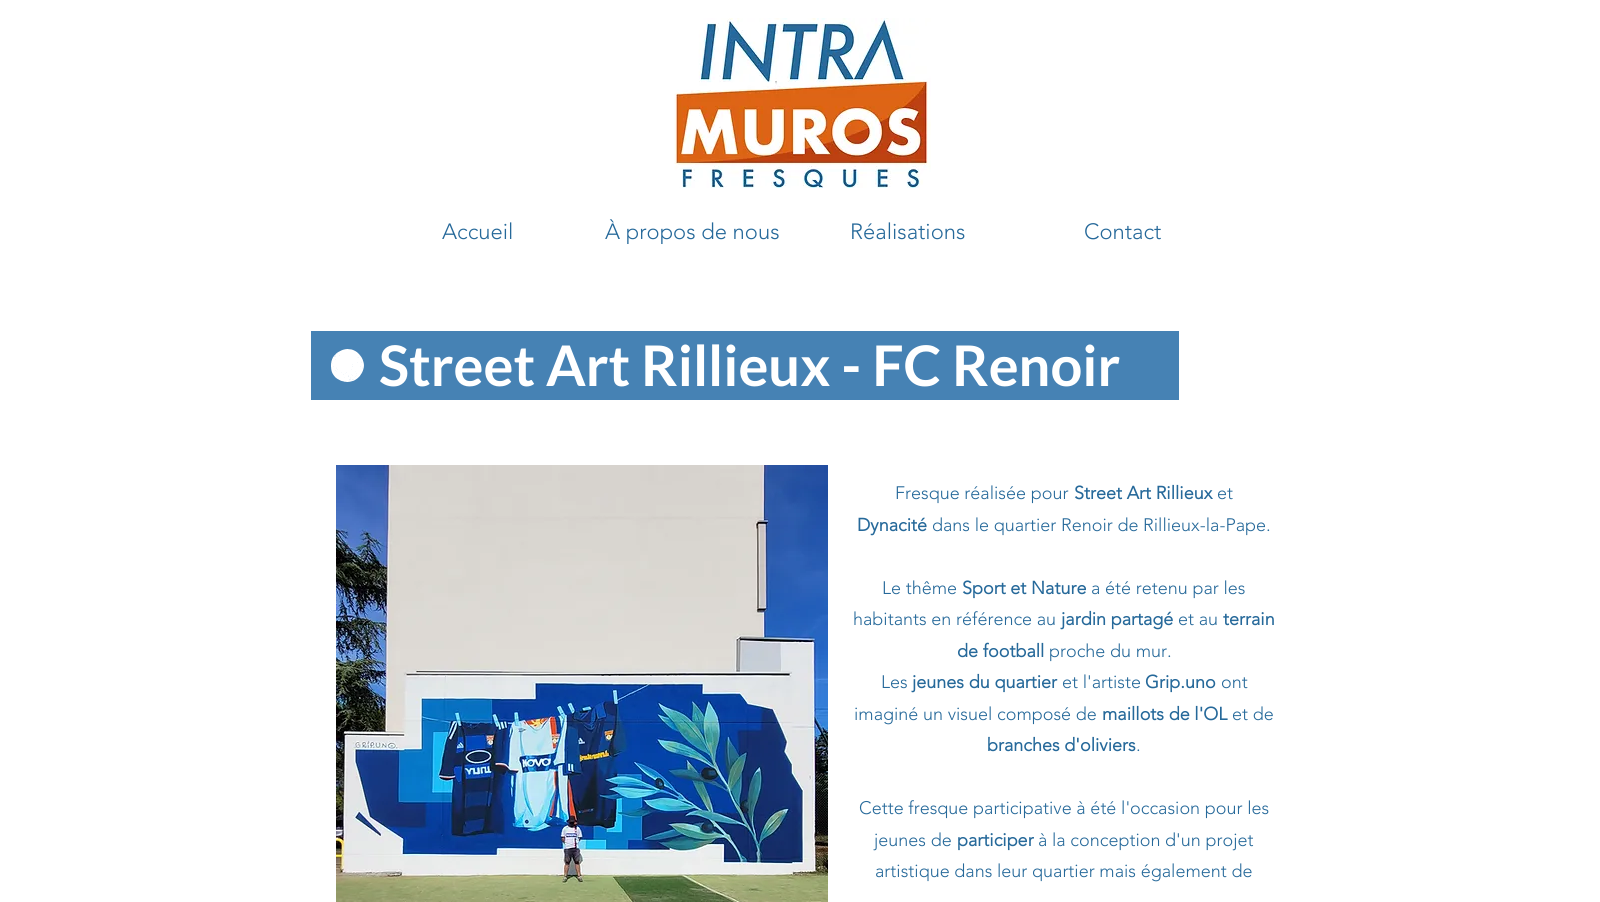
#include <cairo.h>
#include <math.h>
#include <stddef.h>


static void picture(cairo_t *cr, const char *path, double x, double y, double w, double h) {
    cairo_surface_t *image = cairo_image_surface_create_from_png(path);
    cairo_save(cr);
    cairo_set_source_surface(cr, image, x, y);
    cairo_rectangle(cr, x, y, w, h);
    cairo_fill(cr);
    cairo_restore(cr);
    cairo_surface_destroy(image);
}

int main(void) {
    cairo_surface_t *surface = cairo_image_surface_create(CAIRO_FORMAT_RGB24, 1600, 902);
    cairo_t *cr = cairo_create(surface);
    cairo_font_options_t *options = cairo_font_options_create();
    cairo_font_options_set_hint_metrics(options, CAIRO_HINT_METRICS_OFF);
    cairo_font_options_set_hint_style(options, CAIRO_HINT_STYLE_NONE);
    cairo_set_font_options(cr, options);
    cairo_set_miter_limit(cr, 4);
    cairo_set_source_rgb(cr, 1, 1, 1);
    cairo_paint(cr);
    picture(cr, "img1.png", 674, 18, 257, 170);
    cairo_select_font_face(cr, "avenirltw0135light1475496 Light", CAIRO_FONT_SLANT_NORMAL, CAIRO_FONT_WEIGHT_NORMAL);
    cairo_set_font_size(cr, 22);
    cairo_set_source_rgb(cr, 0.149, 0.412, 0.604);
    cairo_move_to(cr, 442, 239);
    cairo_show_text(cr, "Accueil");
    cairo_move_to(cr, 605, 239);
    cairo_show_text(cr, "À propos de nous");
    cairo_move_to(cr, 850, 239);
    cairo_show_text(cr, "Réalisations");
    cairo_move_to(cr, 1084, 239);
    cairo_show_text(cr, "Contact");
    cairo_set_source_rgb(cr, 0.275, 0.51, 0.706);
    cairo_rectangle(cr, 311, 331, 868, 69);
    cairo_fill(cr);
    picture(cr, "img2.png", 331, 349, 33, 33);
    cairo_select_font_face(cr, "Lato", CAIRO_FONT_SLANT_NORMAL, CAIRO_FONT_WEIGHT_BOLD);
    cairo_set_font_size(cr, 56);
    cairo_set_source_rgb(cr, 1, 1, 1);
    cairo_move_to(cr, 379, 386);
    cairo_show_text(cr, "Street Art Rillieux - FC Renoir");
    picture(cr, "img3.png", 336, 465, 492, 437);
    cairo_select_font_face(cr, "avenirltw0135light1475496 Light", CAIRO_FONT_SLANT_NORMAL, CAIRO_FONT_WEIGHT_NORMAL);
    cairo_set_font_size(cr, 18);
    cairo_set_source_rgb(cr, 0.149, 0.412, 0.604);
    cairo_move_to(cr, 895, 499);
    cairo_show_text(cr, "Fresque réalisée pour");
    cairo_select_font_face(cr, "avenirltw0135light1475496", CAIRO_FONT_SLANT_NORMAL, CAIRO_FONT_WEIGHT_BOLD);
    cairo_move_to(cr, 1074, 499);
    cairo_show_text(cr, "Street Art Rillieux");
    cairo_select_font_face(cr, "avenirltw0135light1475496 Light", CAIRO_FONT_SLANT_NORMAL, CAIRO_FONT_WEIGHT_NORMAL);
    cairo_move_to(cr, 1217, 499);
    cairo_show_text(cr, "et");
    cairo_select_font_face(cr, "avenirltw0135light1475496", CAIRO_FONT_SLANT_NORMAL, CAIRO_FONT_WEIGHT_BOLD);
    cairo_move_to(cr, 857, 531);
    cairo_show_text(cr, "Dynacité");
    cairo_select_font_face(cr, "avenirltw0135light1475496 Light", CAIRO_FONT_SLANT_NORMAL, CAIRO_FONT_WEIGHT_NORMAL);
    cairo_move_to(cr, 932, 531);
    cairo_show_text(cr, "dans le quartier Renoir de Rillieux-la-Pape.");
    cairo_move_to(cr, 882, 594);
    cairo_show_text(cr, "Le thême");
    cairo_select_font_face(cr, "avenirltw0135light1475496", CAIRO_FONT_SLANT_NORMAL, CAIRO_FONT_WEIGHT_BOLD);
    cairo_move_to(cr, 962, 594);
    cairo_show_text(cr, "Sport et Nature");
    cairo_select_font_face(cr, "avenirltw0135light1475496 Light", CAIRO_FONT_SLANT_NORMAL, CAIRO_FONT_WEIGHT_NORMAL);
    cairo_move_to(cr, 1091, 594);
    cairo_show_text(cr, "a été retenu par les");
    cairo_move_to(cr, 853, 625);
    cairo_show_text(cr, "habitants en référence au");
    cairo_select_font_face(cr, "avenirltw0135light1475496", CAIRO_FONT_SLANT_NORMAL, CAIRO_FONT_WEIGHT_BOLD);
    cairo_move_to(cr, 1061, 625);
    cairo_show_text(cr, "jardin partagé");
    cairo_select_font_face(cr, "avenirltw0135light1475496 Light", CAIRO_FONT_SLANT_NORMAL, CAIRO_FONT_WEIGHT_NORMAL);
    cairo_move_to(cr, 1178, 625);
    cairo_show_text(cr, "et au");
    cairo_select_font_face(cr, "avenirltw0135light1475496", CAIRO_FONT_SLANT_NORMAL, CAIRO_FONT_WEIGHT_BOLD);
    cairo_move_to(cr, 1223, 625);
    cairo_show_text(cr, "terrain");
    cairo_move_to(cr, 957, 657);
    cairo_show_text(cr, "de football");
    cairo_select_font_face(cr, "avenirltw0135light1475496 Light", CAIRO_FONT_SLANT_NORMAL, CAIRO_FONT_WEIGHT_NORMAL);
    cairo_move_to(cr, 1049, 657);
    cairo_show_text(cr, "proche du mur.");
    cairo_move_to(cr, 881, 688);
    cairo_show_text(cr, "Les");
    cairo_select_font_face(cr, "avenirltw0135light1475496", CAIRO_FONT_SLANT_NORMAL, CAIRO_FONT_WEIGHT_BOLD);
    cairo_move_to(cr, 912, 688);
    cairo_show_text(cr, "jeunes du quartier");
    cairo_select_font_face(cr, "avenirltw0135light1475496 Light", CAIRO_FONT_SLANT_NORMAL, CAIRO_FONT_WEIGHT_NORMAL);
    cairo_move_to(cr, 1062, 688);
    cairo_show_text(cr, "et l'artiste");
    cairo_select_font_face(cr, "avenirltw0135light1475496", CAIRO_FONT_SLANT_NORMAL, CAIRO_FONT_WEIGHT_BOLD);
    cairo_move_to(cr, 1145, 688);
    cairo_show_text(cr, "Grip.uno");
    cairo_select_font_face(cr, "avenirltw0135light1475496 Light", CAIRO_FONT_SLANT_NORMAL, CAIRO_FONT_WEIGHT_NORMAL);
    cairo_move_to(cr, 1221, 688);
    cairo_show_text(cr, "ont");
    cairo_move_to(cr, 854, 720);
    cairo_show_text(cr, "imaginé un visuel composé de");
    cairo_select_font_face(cr, "avenirltw0135light1475496", CAIRO_FONT_SLANT_NORMAL, CAIRO_FONT_WEIGHT_BOLD);
    cairo_move_to(cr, 1102, 720);
    cairo_show_text(cr, "maillots de l'OL");
    cairo_select_font_face(cr, "avenirltw0135light1475496 Light", CAIRO_FONT_SLANT_NORMAL, CAIRO_FONT_WEIGHT_NORMAL);
    cairo_move_to(cr, 1232, 720);
    cairo_show_text(cr, "et de");
    cairo_select_font_face(cr, "avenirltw0135light1475496", CAIRO_FONT_SLANT_NORMAL, CAIRO_FONT_WEIGHT_BOLD);
    cairo_move_to(cr, 987, 751);
    cairo_show_text(cr, "branches d'oliviers");
    cairo_select_font_face(cr, "avenirltw0135light1475496 Light", CAIRO_FONT_SLANT_NORMAL, CAIRO_FONT_WEIGHT_NORMAL);
    cairo_move_to(cr, 1136, 751);
    cairo_show_text(cr, ".");
    cairo_move_to(cr, 859, 814);
    cairo_show_text(cr, "Cette fresque participative à été l'occasion pour les");
    cairo_move_to(cr, 874, 846);
    cairo_show_text(cr, "jeunes de");
    cairo_select_font_face(cr, "avenirltw0135light1475496", CAIRO_FONT_SLANT_NORMAL, CAIRO_FONT_WEIGHT_BOLD);
    cairo_move_to(cr, 957, 846);
    cairo_show_text(cr, "participer");
    cairo_select_font_face(cr, "avenirltw0135light1475496 Light", CAIRO_FONT_SLANT_NORMAL, CAIRO_FONT_WEIGHT_NORMAL);
    cairo_move_to(cr, 1038, 846);
    cairo_show_text(cr, "à la conception d'un projet");
    cairo_move_to(cr, 875, 877);
    cairo_show_text(cr, "artistique dans leur quartier mais également de");
    cairo_surface_write_to_png(surface, "page.png");
    cairo_font_options_destroy(options);
    cairo_destroy(cr);
    cairo_surface_destroy(surface);
    return 0;
}
